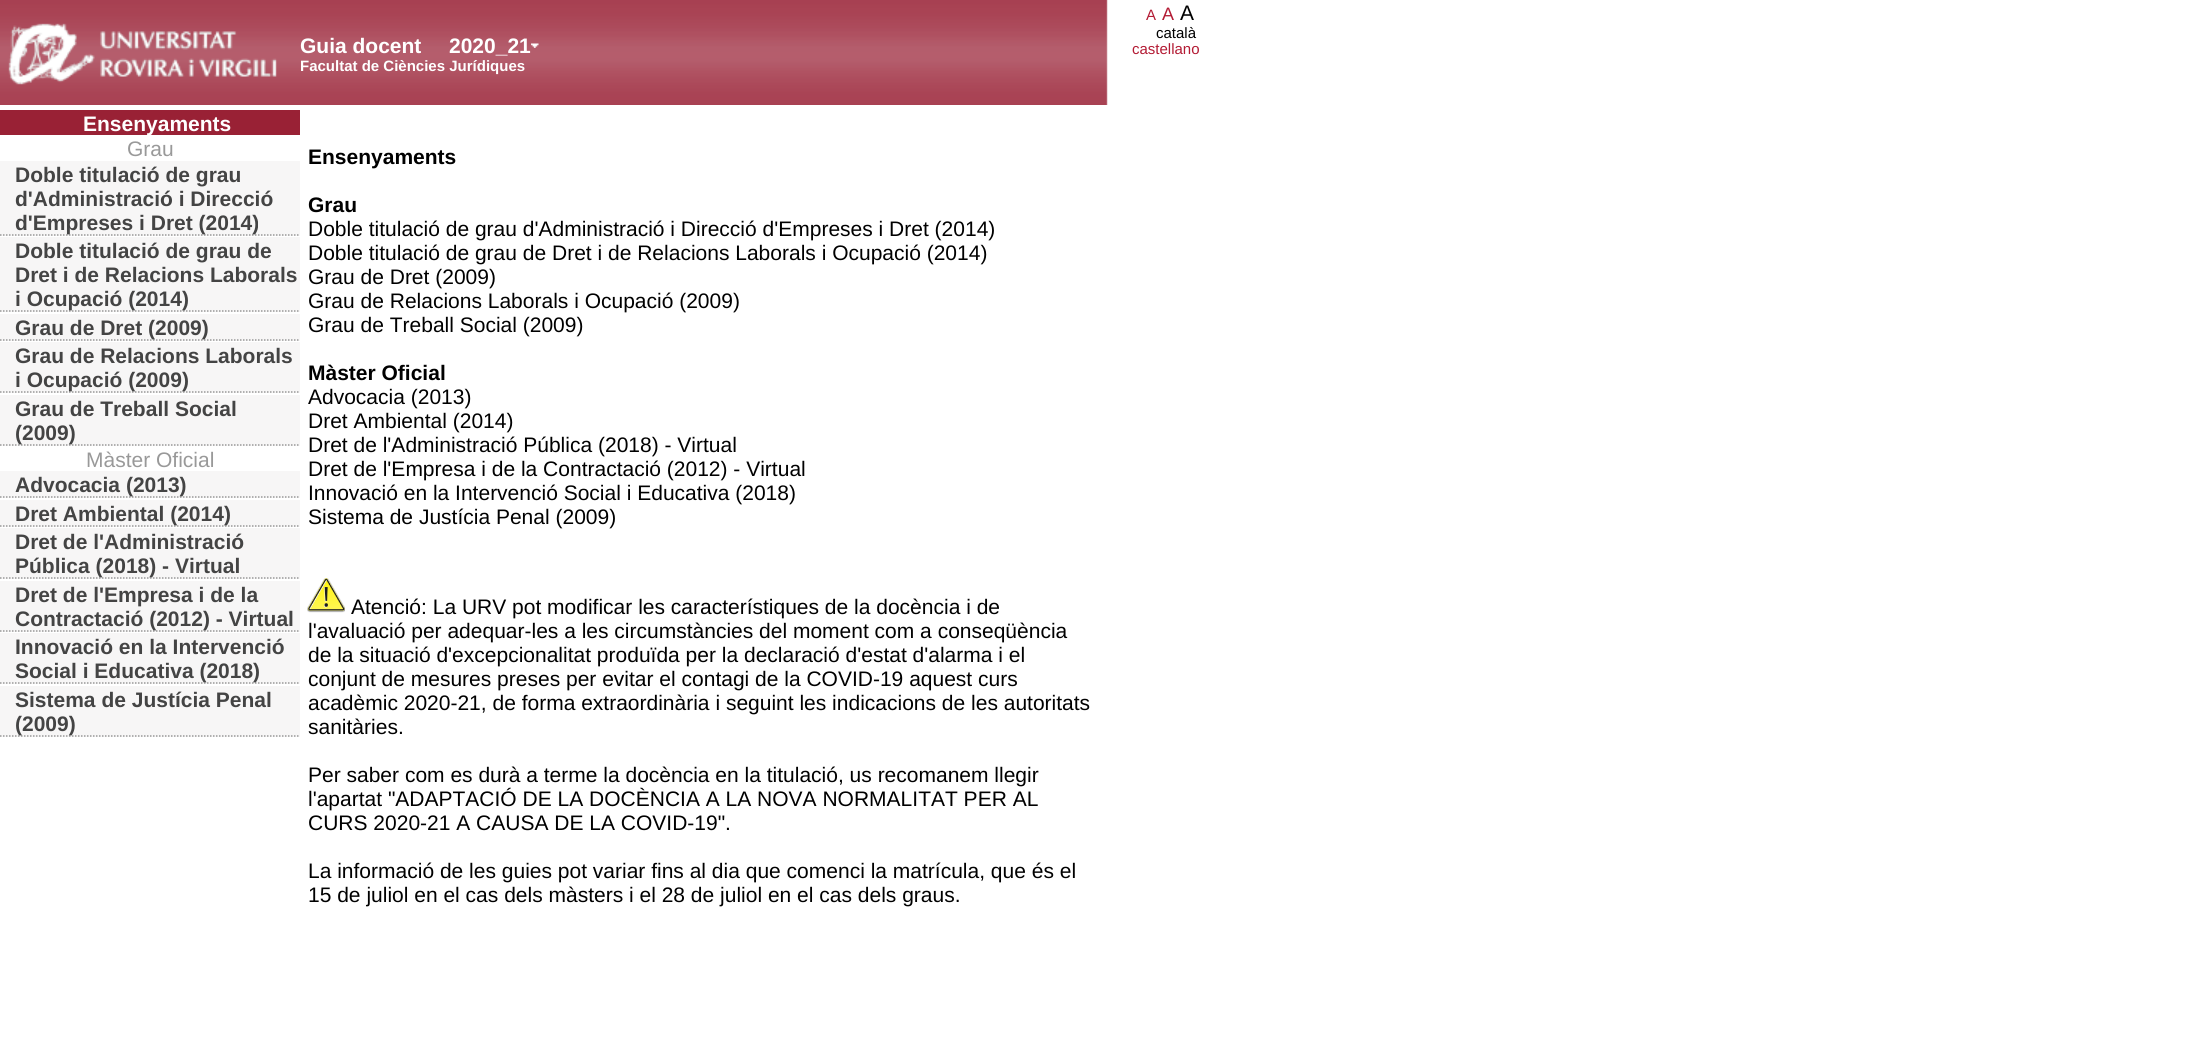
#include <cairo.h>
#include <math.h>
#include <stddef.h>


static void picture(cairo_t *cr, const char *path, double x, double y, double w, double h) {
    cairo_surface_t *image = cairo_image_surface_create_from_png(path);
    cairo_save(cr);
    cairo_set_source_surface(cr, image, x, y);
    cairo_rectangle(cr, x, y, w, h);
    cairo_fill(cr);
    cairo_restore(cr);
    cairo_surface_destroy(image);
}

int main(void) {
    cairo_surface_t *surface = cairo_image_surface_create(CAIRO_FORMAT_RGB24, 2186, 1051);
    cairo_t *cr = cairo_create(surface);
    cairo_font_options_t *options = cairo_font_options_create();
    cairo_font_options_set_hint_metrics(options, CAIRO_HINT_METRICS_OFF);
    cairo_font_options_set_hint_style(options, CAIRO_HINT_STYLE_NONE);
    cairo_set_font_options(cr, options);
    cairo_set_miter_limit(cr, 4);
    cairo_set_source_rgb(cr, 1, 1, 1);
    cairo_paint(cr);
    picture(cr, "img1.png", 0, 0, 1108, 105);
    cairo_select_font_face(cr, "Liberation Sans", CAIRO_FONT_SLANT_NORMAL, CAIRO_FONT_WEIGHT_BOLD);
    cairo_set_font_size(cr, 21);
    cairo_set_source_rgb(cr, 1, 1, 1);
    cairo_move_to(cr, 300, 53);
    cairo_show_text(cr, "Guia docent");
    cairo_set_font_size(cr, 15);
    cairo_move_to(cr, 300, 71);
    cairo_show_text(cr, "Facultat de Ciències Jurídiques");
    cairo_select_font_face(cr, "Liberation Sans", CAIRO_FONT_SLANT_NORMAL, CAIRO_FONT_WEIGHT_NORMAL);
    cairo_set_source_rgb(cr, 0.702, 0.106, 0.204);
    cairo_move_to(cr, 1146, 20);
    cairo_show_text(cr, "A");
    cairo_set_font_size(cr, 18);
    cairo_move_to(cr, 1162, 20);
    cairo_show_text(cr, "A");
    cairo_set_font_size(cr, 21);
    cairo_set_source_rgb(cr, 0, 0, 0);
    cairo_move_to(cr, 1180, 20);
    cairo_show_text(cr, "A");
    cairo_set_font_size(cr, 15);
    cairo_move_to(cr, 1156, 38);
    cairo_show_text(cr, "català");
    cairo_set_source_rgb(cr, 0.702, 0.106, 0.204);
    cairo_move_to(cr, 1132, 54);
    cairo_show_text(cr, "castellano");
    cairo_set_source_rgb(cr, 0.6, 0.129, 0.208);
    cairo_rectangle(cr, 0, 110, 300, 25);
    cairo_fill(cr);
    cairo_select_font_face(cr, "Liberation Sans", CAIRO_FONT_SLANT_NORMAL, CAIRO_FONT_WEIGHT_BOLD);
    cairo_set_font_size(cr, 21);
    cairo_set_source_rgb(cr, 1, 1, 1);
    cairo_move_to(cr, 83, 131);
    cairo_show_text(cr, "Ensenyaments");
    cairo_select_font_face(cr, "Liberation Sans", CAIRO_FONT_SLANT_NORMAL, CAIRO_FONT_WEIGHT_NORMAL);
    cairo_set_source_rgb(cr, 0.6, 0.6, 0.6);
    cairo_move_to(cr, 127, 156);
    cairo_show_text(cr, "Grau");
    cairo_set_source_rgb(cr, 0.965, 0.961, 0.961);
    cairo_rectangle(cr, 0, 161, 300, 75);
    cairo_fill(cr);
    cairo_new_path(cr);
    cairo_move_to(cr, 0, 235);
    cairo_line_to(cr, 300, 235);
    cairo_set_source_rgb(cr, 0.6, 0.6, 0.6);
    cairo_set_line_width(cr, 1.5);
    cairo_set_dash(cr, (double[]){1.5, 1.5}, 2, 0);
    cairo_stroke(cr);
    cairo_select_font_face(cr, "Liberation Sans", CAIRO_FONT_SLANT_NORMAL, CAIRO_FONT_WEIGHT_BOLD);
    cairo_set_source_rgb(cr, 0.267, 0.267, 0.267);
    cairo_move_to(cr, 15, 182);
    cairo_show_text(cr, "Doble titulació de grau");
    cairo_move_to(cr, 15, 206);
    cairo_show_text(cr, "d'Administració i Direcció");
    cairo_move_to(cr, 15, 230);
    cairo_show_text(cr, "d'Empreses i Dret (2014)");
    cairo_set_source_rgb(cr, 0.965, 0.961, 0.961);
    cairo_rectangle(cr, 0, 237, 300, 75);
    cairo_fill(cr);
    cairo_new_path(cr);
    cairo_move_to(cr, 0, 311);
    cairo_line_to(cr, 300, 311);
    cairo_set_source_rgb(cr, 0.6, 0.6, 0.6);
    cairo_stroke(cr);
    cairo_set_source_rgb(cr, 0.267, 0.267, 0.267);
    cairo_move_to(cr, 15, 258);
    cairo_show_text(cr, "Doble titulació de grau de");
    cairo_move_to(cr, 15, 282);
    cairo_show_text(cr, "Dret i de Relacions Laborals");
    cairo_move_to(cr, 15, 306);
    cairo_show_text(cr, "i Ocupació (2014)");
    cairo_set_source_rgb(cr, 0.965, 0.961, 0.961);
    cairo_rectangle(cr, 0, 314, 300, 27);
    cairo_fill(cr);
    cairo_new_path(cr);
    cairo_move_to(cr, 0, 340);
    cairo_line_to(cr, 300, 340);
    cairo_set_source_rgb(cr, 0.6, 0.6, 0.6);
    cairo_stroke(cr);
    cairo_set_source_rgb(cr, 0.267, 0.267, 0.267);
    cairo_move_to(cr, 15, 335);
    cairo_show_text(cr, "Grau de Dret (2009)");
    cairo_set_source_rgb(cr, 0.965, 0.961, 0.961);
    cairo_rectangle(cr, 0, 342, 300, 51);
    cairo_fill(cr);
    cairo_new_path(cr);
    cairo_move_to(cr, 0, 392);
    cairo_line_to(cr, 300, 392);
    cairo_set_source_rgb(cr, 0.6, 0.6, 0.6);
    cairo_stroke(cr);
    cairo_set_source_rgb(cr, 0.267, 0.267, 0.267);
    cairo_move_to(cr, 15, 363);
    cairo_show_text(cr, "Grau de Relacions Laborals");
    cairo_move_to(cr, 15, 387);
    cairo_show_text(cr, "i Ocupació (2009)");
    cairo_set_source_rgb(cr, 0.965, 0.961, 0.961);
    cairo_rectangle(cr, 0, 395, 300, 51);
    cairo_fill(cr);
    cairo_new_path(cr);
    cairo_move_to(cr, 0, 445);
    cairo_line_to(cr, 300, 445);
    cairo_set_source_rgb(cr, 0.6, 0.6, 0.6);
    cairo_stroke(cr);
    cairo_set_source_rgb(cr, 0.267, 0.267, 0.267);
    cairo_move_to(cr, 15, 416);
    cairo_show_text(cr, "Grau de Treball Social");
    cairo_move_to(cr, 15, 440);
    cairo_show_text(cr, "(2009)");
    cairo_select_font_face(cr, "Liberation Sans", CAIRO_FONT_SLANT_NORMAL, CAIRO_FONT_WEIGHT_NORMAL);
    cairo_set_source_rgb(cr, 0.6, 0.6, 0.6);
    cairo_move_to(cr, 86, 467);
    cairo_show_text(cr, "Màster Oficial");
    cairo_set_source_rgb(cr, 0.965, 0.961, 0.961);
    cairo_rectangle(cr, 0, 471, 300, 27);
    cairo_fill(cr);
    cairo_new_path(cr);
    cairo_move_to(cr, 0, 497);
    cairo_line_to(cr, 300, 497);
    cairo_set_source_rgb(cr, 0.6, 0.6, 0.6);
    cairo_stroke(cr);
    cairo_select_font_face(cr, "Liberation Sans", CAIRO_FONT_SLANT_NORMAL, CAIRO_FONT_WEIGHT_BOLD);
    cairo_set_source_rgb(cr, 0.267, 0.267, 0.267);
    cairo_move_to(cr, 15, 492);
    cairo_show_text(cr, "Advocacia (2013)");
    cairo_set_source_rgb(cr, 0.965, 0.961, 0.961);
    cairo_rectangle(cr, 0, 500, 300, 27);
    cairo_fill(cr);
    cairo_new_path(cr);
    cairo_move_to(cr, 0, 526);
    cairo_line_to(cr, 300, 526);
    cairo_set_source_rgb(cr, 0.6, 0.6, 0.6);
    cairo_stroke(cr);
    cairo_set_source_rgb(cr, 0.267, 0.267, 0.267);
    cairo_move_to(cr, 15, 521);
    cairo_show_text(cr, "Dret Ambiental (2014)");
    cairo_set_source_rgb(cr, 0.965, 0.961, 0.961);
    cairo_rectangle(cr, 0, 528, 300, 51);
    cairo_fill(cr);
    cairo_new_path(cr);
    cairo_move_to(cr, 0, 578);
    cairo_line_to(cr, 300, 578);
    cairo_set_source_rgb(cr, 0.6, 0.6, 0.6);
    cairo_stroke(cr);
    cairo_set_source_rgb(cr, 0.267, 0.267, 0.267);
    cairo_move_to(cr, 15, 549);
    cairo_show_text(cr, "Dret de l'Administració");
    cairo_move_to(cr, 15, 573);
    cairo_show_text(cr, "Pública (2018) - Virtual");
    cairo_set_source_rgb(cr, 0.965, 0.961, 0.961);
    cairo_rectangle(cr, 0, 581, 300, 51);
    cairo_fill(cr);
    cairo_new_path(cr);
    cairo_move_to(cr, 0, 631);
    cairo_line_to(cr, 300, 631);
    cairo_set_source_rgb(cr, 0.6, 0.6, 0.6);
    cairo_stroke(cr);
    cairo_set_source_rgb(cr, 0.267, 0.267, 0.267);
    cairo_move_to(cr, 15, 602);
    cairo_show_text(cr, "Dret de l'Empresa i de la");
    cairo_move_to(cr, 15, 626);
    cairo_show_text(cr, "Contractació (2012) - Virtual");
    cairo_set_source_rgb(cr, 0.965, 0.961, 0.961);
    cairo_rectangle(cr, 0, 633, 300, 51);
    cairo_fill(cr);
    cairo_new_path(cr);
    cairo_move_to(cr, 0, 683);
    cairo_line_to(cr, 300, 683);
    cairo_set_source_rgb(cr, 0.6, 0.6, 0.6);
    cairo_stroke(cr);
    cairo_set_source_rgb(cr, 0.267, 0.267, 0.267);
    cairo_move_to(cr, 15, 654);
    cairo_show_text(cr, "Innovació en la Intervenció");
    cairo_move_to(cr, 15, 678);
    cairo_show_text(cr, "Social i Educativa (2018)");
    cairo_set_source_rgb(cr, 0.965, 0.961, 0.961);
    cairo_rectangle(cr, 0, 686, 300, 51);
    cairo_fill(cr);
    cairo_new_path(cr);
    cairo_move_to(cr, 0, 736);
    cairo_line_to(cr, 300, 736);
    cairo_set_source_rgb(cr, 0.6, 0.6, 0.6);
    cairo_stroke(cr);
    cairo_set_source_rgb(cr, 0.267, 0.267, 0.267);
    cairo_move_to(cr, 15, 707);
    cairo_show_text(cr, "Sistema de Justícia Penal");
    cairo_move_to(cr, 15, 731);
    cairo_show_text(cr, "(2009)");
    cairo_set_source_rgb(cr, 0, 0, 0);
    cairo_move_to(cr, 308, 164);
    cairo_show_text(cr, "Ensenyaments");
    cairo_move_to(cr, 308, 212);
    cairo_show_text(cr, "Grau");
    cairo_select_font_face(cr, "Liberation Sans", CAIRO_FONT_SLANT_NORMAL, CAIRO_FONT_WEIGHT_NORMAL);
    cairo_move_to(cr, 308, 236);
    cairo_show_text(cr, "Doble titulació de grau d'Administració i Direcció d'Empreses i Dret (2014)");
    cairo_move_to(cr, 308, 260);
    cairo_show_text(cr, "Doble titulació de grau de Dret i de Relacions Laborals i Ocupació (2014)");
    cairo_move_to(cr, 308, 284);
    cairo_show_text(cr, "Grau de Dret (2009)");
    cairo_move_to(cr, 308, 308);
    cairo_show_text(cr, "Grau de Relacions Laborals i Ocupació (2009)");
    cairo_move_to(cr, 308, 332);
    cairo_show_text(cr, "Grau de Treball Social (2009)");
    cairo_select_font_face(cr, "Liberation Sans", CAIRO_FONT_SLANT_NORMAL, CAIRO_FONT_WEIGHT_BOLD);
    cairo_move_to(cr, 308, 380);
    cairo_show_text(cr, "Màster Oficial");
    cairo_select_font_face(cr, "Liberation Sans", CAIRO_FONT_SLANT_NORMAL, CAIRO_FONT_WEIGHT_NORMAL);
    cairo_move_to(cr, 308, 404);
    cairo_show_text(cr, "Advocacia (2013)");
    cairo_move_to(cr, 308, 428);
    cairo_show_text(cr, "Dret Ambiental (2014)");
    cairo_move_to(cr, 308, 452);
    cairo_show_text(cr, "Dret de l'Administració Pública (2018) - Virtual");
    cairo_move_to(cr, 308, 476);
    cairo_show_text(cr, "Dret de l'Empresa i de la Contractació (2012) - Virtual");
    cairo_move_to(cr, 308, 500);
    cairo_show_text(cr, "Innovació en la Intervenció Social i Educativa (2018)");
    cairo_move_to(cr, 308, 524);
    cairo_show_text(cr, "Sistema de Justícia Penal (2009)");
    picture(cr, "img2.png", 307, 578, 38, 35);
    cairo_move_to(cr, 351, 614);
    cairo_show_text(cr, "Atenció: La URV pot modificar les característiques de la docència i de");
    cairo_move_to(cr, 308, 638);
    cairo_show_text(cr, "l'avaluació per adequar-les a les circumstàncies del moment com a conseqüència");
    cairo_move_to(cr, 308, 662);
    cairo_show_text(cr, "de la situació d'excepcionalitat produïda per la declaració d'estat d'alarma i el");
    cairo_move_to(cr, 308, 686);
    cairo_show_text(cr, "conjunt de mesures preses per evitar el contagi de la COVID-19 aquest curs");
    cairo_move_to(cr, 308, 710);
    cairo_show_text(cr, "acadèmic 2020-21, de forma extraordinària i seguint les indicacions de les autoritats");
    cairo_move_to(cr, 308, 734);
    cairo_show_text(cr, "sanitàries.");
    cairo_move_to(cr, 308, 782);
    cairo_show_text(cr, "Per saber com es durà a terme la docència en la titulació, us recomanem llegir");
    cairo_move_to(cr, 308, 806);
    cairo_show_text(cr, "l'apartat \"ADAPTACIÓ DE LA DOCÈNCIA A LA NOVA NORMALITAT PER AL");
    cairo_move_to(cr, 308, 830);
    cairo_show_text(cr, "CURS 2020-21 A CAUSA DE LA COVID-19\".");
    cairo_move_to(cr, 308, 878);
    cairo_show_text(cr, "La informació de les guies pot variar fins al dia que comenci la matrícula, que és el");
    cairo_move_to(cr, 308, 902);
    cairo_show_text(cr, "15 de juliol en el cas dels màsters i el 28 de juliol en el cas dels graus.");
    cairo_select_font_face(cr, "Liberation Sans", CAIRO_FONT_SLANT_NORMAL, CAIRO_FONT_WEIGHT_BOLD);
    cairo_set_source_rgb(cr, 1, 1, 1);
    cairo_move_to(cr, 449, 53);
    cairo_show_text(cr, "2020_21");
    picture(cr, "img3.png", 531, 43, 8, 5);
    cairo_surface_write_to_png(surface, "page.png");
    cairo_font_options_destroy(options);
    cairo_destroy(cr);
    cairo_surface_destroy(surface);
    return 0;
}
